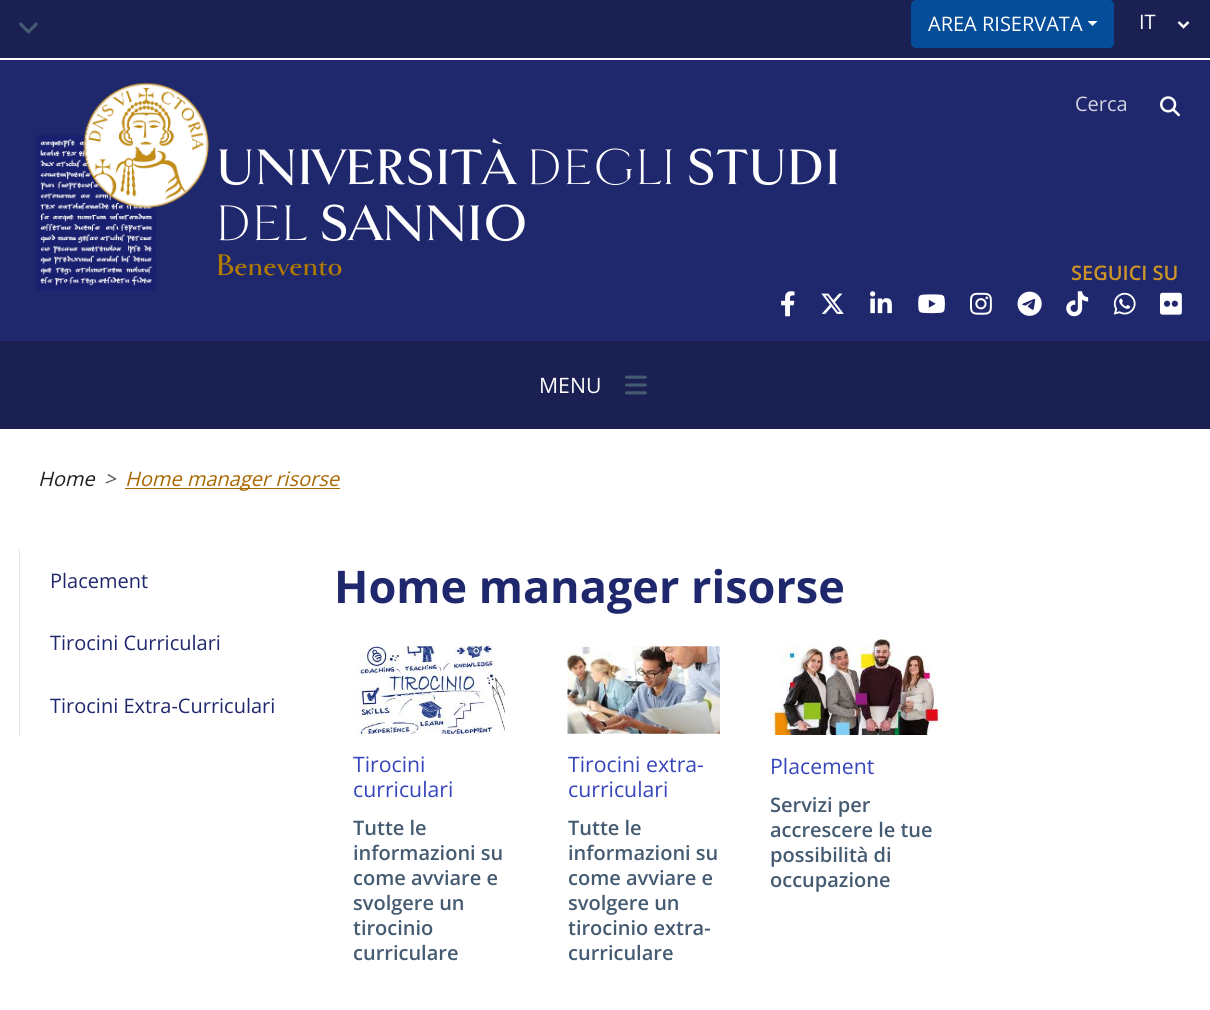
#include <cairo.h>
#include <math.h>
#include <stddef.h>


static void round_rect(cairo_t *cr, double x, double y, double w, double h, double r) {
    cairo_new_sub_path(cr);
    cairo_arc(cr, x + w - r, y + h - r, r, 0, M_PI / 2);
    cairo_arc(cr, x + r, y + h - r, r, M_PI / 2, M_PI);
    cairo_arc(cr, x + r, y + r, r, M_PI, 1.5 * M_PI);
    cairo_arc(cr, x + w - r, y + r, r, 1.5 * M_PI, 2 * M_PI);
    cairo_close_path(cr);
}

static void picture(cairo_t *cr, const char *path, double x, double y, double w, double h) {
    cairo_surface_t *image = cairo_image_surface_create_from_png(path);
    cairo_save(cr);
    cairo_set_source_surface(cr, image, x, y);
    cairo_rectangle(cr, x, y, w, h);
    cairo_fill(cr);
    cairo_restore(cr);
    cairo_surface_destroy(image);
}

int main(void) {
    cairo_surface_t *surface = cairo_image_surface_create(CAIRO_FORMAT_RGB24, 1210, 1010);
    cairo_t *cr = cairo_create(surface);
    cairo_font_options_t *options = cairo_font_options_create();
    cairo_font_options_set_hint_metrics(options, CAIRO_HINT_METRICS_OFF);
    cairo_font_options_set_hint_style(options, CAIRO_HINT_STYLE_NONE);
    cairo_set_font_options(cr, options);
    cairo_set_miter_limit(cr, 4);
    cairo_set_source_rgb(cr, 1, 1, 1);
    cairo_paint(cr);
    cairo_set_source_rgb(cr, 0.106, 0.125, 0.325);
    cairo_rectangle(cr, 0, 0, 1210, 58);
    cairo_fill(cr);
    picture(cr, "img1.png", 19, 22, 19, 12);
    cairo_set_source_rgb(cr, 0.027, 0.302, 0.6);
    round_rect(cr, 911.5, 0.5, 202, 47, 4.5);
    cairo_fill_preserve(cr);
    cairo_set_line_width(cr, 1);
    cairo_stroke(cr);
    cairo_select_font_face(cr, "Open Sans", CAIRO_FONT_SLANT_NORMAL, CAIRO_FONT_WEIGHT_NORMAL);
    cairo_set_font_size(cr, 20);
    cairo_set_source_rgb(cr, 1, 1, 1);
    cairo_move_to(cr, 928, 31);
    cairo_show_text(cr, "AREA RISERVATA");
    cairo_new_path(cr);
    cairo_move_to(cr, 1087.5, 21);
    cairo_line_to(cr, 1097.5, 21);
    cairo_line_to(cr, 1092.5, 26);
    cairo_close_path(cr);
    cairo_fill(cr);
    cairo_new_path(cr);
    cairo_move_to(cr, 1178.5, 22);
    cairo_line_to(cr, 1183.5, 27);
    cairo_line_to(cr, 1188.5, 22);
    cairo_set_line_width(cr, 2.5);
    cairo_stroke(cr);
    cairo_move_to(cr, 1139, 29);
    cairo_show_text(cr, "IT");
    cairo_set_source_rgb(cr, 0.125, 0.157, 0.427);
    cairo_rectangle(cr, 0, 60, 1210, 281);
    cairo_fill(cr);
    picture(cr, "img2.png", 36, 82, 173, 208);
    cairo_select_font_face(cr, "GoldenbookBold", CAIRO_FONT_SLANT_NORMAL, CAIRO_FONT_WEIGHT_NORMAL);
    cairo_set_font_size(cr, 52.5);
    cairo_set_source_rgb(cr, 1, 1, 1);
    cairo_move_to(cr, 216, 184);
    cairo_show_text(cr, "UNIVERSITÀ");
    cairo_select_font_face(cr, "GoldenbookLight", CAIRO_FONT_SLANT_NORMAL, CAIRO_FONT_WEIGHT_NORMAL);
    cairo_move_to(cr, 527, 184);
    cairo_show_text(cr, "DEGLI");
    cairo_select_font_face(cr, "GoldenbookBold", CAIRO_FONT_SLANT_NORMAL, CAIRO_FONT_WEIGHT_NORMAL);
    cairo_move_to(cr, 686, 184);
    cairo_show_text(cr, "STUDI");
    cairo_select_font_face(cr, "GoldenbookLight", CAIRO_FONT_SLANT_NORMAL, CAIRO_FONT_WEIGHT_NORMAL);
    cairo_move_to(cr, 216, 240);
    cairo_show_text(cr, "DEL");
    cairo_select_font_face(cr, "GoldenbookBold", CAIRO_FONT_SLANT_NORMAL, CAIRO_FONT_WEIGHT_NORMAL);
    cairo_move_to(cr, 319, 240);
    cairo_show_text(cr, "SANNIO");
    cairo_set_font_size(cr, 31.5);
    cairo_set_source_rgb(cr, 0.694, 0.478, 0);
    cairo_move_to(cr, 216, 275);
    cairo_show_text(cr, "Benevento");
    cairo_select_font_face(cr, "Open Sans", CAIRO_FONT_SLANT_NORMAL, CAIRO_FONT_WEIGHT_NORMAL);
    cairo_set_font_size(cr, 20);
    cairo_set_source_rgb(cr, 0.824, 0.831, 0.886);
    cairo_move_to(cr, 1075, 111);
    cairo_show_text(cr, "Cerca");
    picture(cr, "img3.png", 1160, 96, 20, 21);
    cairo_select_font_face(cr, "Open Sans SemiBold", CAIRO_FONT_SLANT_NORMAL, CAIRO_FONT_WEIGHT_NORMAL);
    cairo_set_source_rgb(cr, 0.812, 0.588, 0.145);
    cairo_move_to(cr, 1071, 280);
    cairo_show_text(cr, "SEGUICI SU");
    picture(cr, "img4.png", 781, 291, 14, 26);
    picture(cr, "img5.png", 821, 293, 23, 21);
    picture(cr, "img6.png", 870, 291, 22, 23);
    picture(cr, "img7.png", 918, 294, 27, 20);
    picture(cr, "img8.png", 970, 292, 22, 23);
    picture(cr, "img9.png", 1017, 291, 25, 25);
    picture(cr, "img10.png", 1066, 291, 23, 26);
    picture(cr, "img11.png", 1113, 292, 23, 23);
    picture(cr, "img12.png", 1160, 292, 22, 23);
    cairo_set_source_rgb(cr, 0.106, 0.125, 0.325);
    cairo_rectangle(cr, 0, 341, 1210, 88);
    cairo_fill(cr);
    cairo_select_font_face(cr, "Open Sans", CAIRO_FONT_SLANT_NORMAL, CAIRO_FONT_WEIGHT_NORMAL);
    cairo_set_font_size(cr, 21.25);
    cairo_set_source_rgb(cr, 1, 1, 1);
    cairo_move_to(cr, 539, 393);
    cairo_show_text(cr, "MENU");
    picture(cr, "img13.png", 625, 375, 22, 20);
    cairo_select_font_face(cr, "Open Sans", CAIRO_FONT_SLANT_ITALIC, CAIRO_FONT_WEIGHT_NORMAL);
    cairo_set_font_size(cr, 20);
    cairo_set_source_rgb(cr, 0.11, 0.125, 0.141);
    cairo_move_to(cr, 38, 486);
    cairo_show_text(cr, "Home");
    cairo_set_source_rgb(cr, 0.286, 0.314, 0.341);
    cairo_move_to(cr, 104, 486);
    cairo_show_text(cr, ">");
    cairo_set_source_rgb(cr, 0.663, 0.404, 0);
    cairo_rectangle(cr, 125, 488, 215, 1);
    cairo_fill(cr);
    cairo_move_to(cr, 125, 486);
    cairo_show_text(cr, "Home manager risorse");
    cairo_set_source_rgb(cr, 0.898, 0.898, 0.898);
    cairo_rectangle(cr, 19, 549, 1, 187);
    cairo_fill(cr);
    cairo_select_font_face(cr, "Open Sans", CAIRO_FONT_SLANT_NORMAL, CAIRO_FONT_WEIGHT_NORMAL);
    cairo_set_source_rgb(cr, 0.125, 0.157, 0.427);
    cairo_move_to(cr, 50, 588);
    cairo_show_text(cr, "Placement");
    cairo_move_to(cr, 50, 650);
    cairo_show_text(cr, "Tirocini Curriculari");
    cairo_move_to(cr, 50, 713);
    cairo_show_text(cr, "Tirocini Extra-Curriculari");
    cairo_select_font_face(cr, "Open Sans", CAIRO_FONT_SLANT_NORMAL, CAIRO_FONT_WEIGHT_BOLD);
    cairo_set_font_size(cr, 45);
    cairo_move_to(cr, 334, 603);
    cairo_show_text(cr, "Home manager risorse");
    picture(cr, "img14.png", 354, 646, 151, 88);
    cairo_select_font_face(cr, "Open Sans", CAIRO_FONT_SLANT_NORMAL, CAIRO_FONT_WEIGHT_NORMAL);
    cairo_set_font_size(cr, 21.25);
    cairo_set_source_rgb(cr, 0.216, 0.271, 0.737);
    cairo_move_to(cr, 353, 772);
    cairo_show_text(cr, "Tirocini");
    cairo_move_to(cr, 353, 797);
    cairo_show_text(cr, "curriculari");
    cairo_select_font_face(cr, "Open Sans SemiBold", CAIRO_FONT_SLANT_NORMAL, CAIRO_FONT_WEIGHT_NORMAL);
    cairo_set_font_size(cr, 20);
    cairo_set_source_rgb(cr, 0.271, 0.357, 0.443);
    cairo_move_to(cr, 353, 835);
    cairo_show_text(cr, "Tutte le");
    cairo_move_to(cr, 353, 860);
    cairo_show_text(cr, "informazioni su");
    cairo_move_to(cr, 353, 885);
    cairo_show_text(cr, "come avviare e");
    cairo_move_to(cr, 353, 910);
    cairo_show_text(cr, "svolgere un");
    cairo_move_to(cr, 353, 935);
    cairo_show_text(cr, "tirocinio");
    cairo_move_to(cr, 353, 960);
    cairo_show_text(cr, "curriculare");
    picture(cr, "img15.png", 567, 646, 153, 88);
    cairo_select_font_face(cr, "Open Sans", CAIRO_FONT_SLANT_NORMAL, CAIRO_FONT_WEIGHT_NORMAL);
    cairo_set_font_size(cr, 21.25);
    cairo_set_source_rgb(cr, 0.216, 0.271, 0.737);
    cairo_move_to(cr, 568, 772);
    cairo_show_text(cr, "Tirocini extra-");
    cairo_move_to(cr, 568, 797);
    cairo_show_text(cr, "curriculari");
    cairo_select_font_face(cr, "Open Sans SemiBold", CAIRO_FONT_SLANT_NORMAL, CAIRO_FONT_WEIGHT_NORMAL);
    cairo_set_font_size(cr, 20);
    cairo_set_source_rgb(cr, 0.271, 0.357, 0.443);
    cairo_move_to(cr, 568, 835);
    cairo_show_text(cr, "Tutte le");
    cairo_move_to(cr, 568, 860);
    cairo_show_text(cr, "informazioni su");
    cairo_move_to(cr, 568, 885);
    cairo_show_text(cr, "come avviare e");
    cairo_move_to(cr, 568, 910);
    cairo_show_text(cr, "svolgere un");
    cairo_move_to(cr, 568, 935);
    cairo_show_text(cr, "tirocinio extra-");
    cairo_move_to(cr, 568, 960);
    cairo_show_text(cr, "curriculare");
    picture(cr, "img16.png", 770, 637, 172, 98);
    cairo_select_font_face(cr, "Open Sans", CAIRO_FONT_SLANT_NORMAL, CAIRO_FONT_WEIGHT_NORMAL);
    cairo_set_font_size(cr, 21.25);
    cairo_set_source_rgb(cr, 0.216, 0.271, 0.737);
    cairo_move_to(cr, 770, 774);
    cairo_show_text(cr, "Placement");
    cairo_select_font_face(cr, "Open Sans SemiBold", CAIRO_FONT_SLANT_NORMAL, CAIRO_FONT_WEIGHT_NORMAL);
    cairo_set_font_size(cr, 20);
    cairo_set_source_rgb(cr, 0.271, 0.357, 0.443);
    cairo_move_to(cr, 770, 812);
    cairo_show_text(cr, "Servizi per");
    cairo_move_to(cr, 770, 837);
    cairo_show_text(cr, "accrescere le tue");
    cairo_move_to(cr, 770, 862);
    cairo_show_text(cr, "possibilità di");
    cairo_move_to(cr, 770, 887);
    cairo_show_text(cr, "occupazione");
    cairo_surface_write_to_png(surface, "page.png");
    cairo_font_options_destroy(options);
    cairo_destroy(cr);
    cairo_surface_destroy(surface);
    return 0;
}
